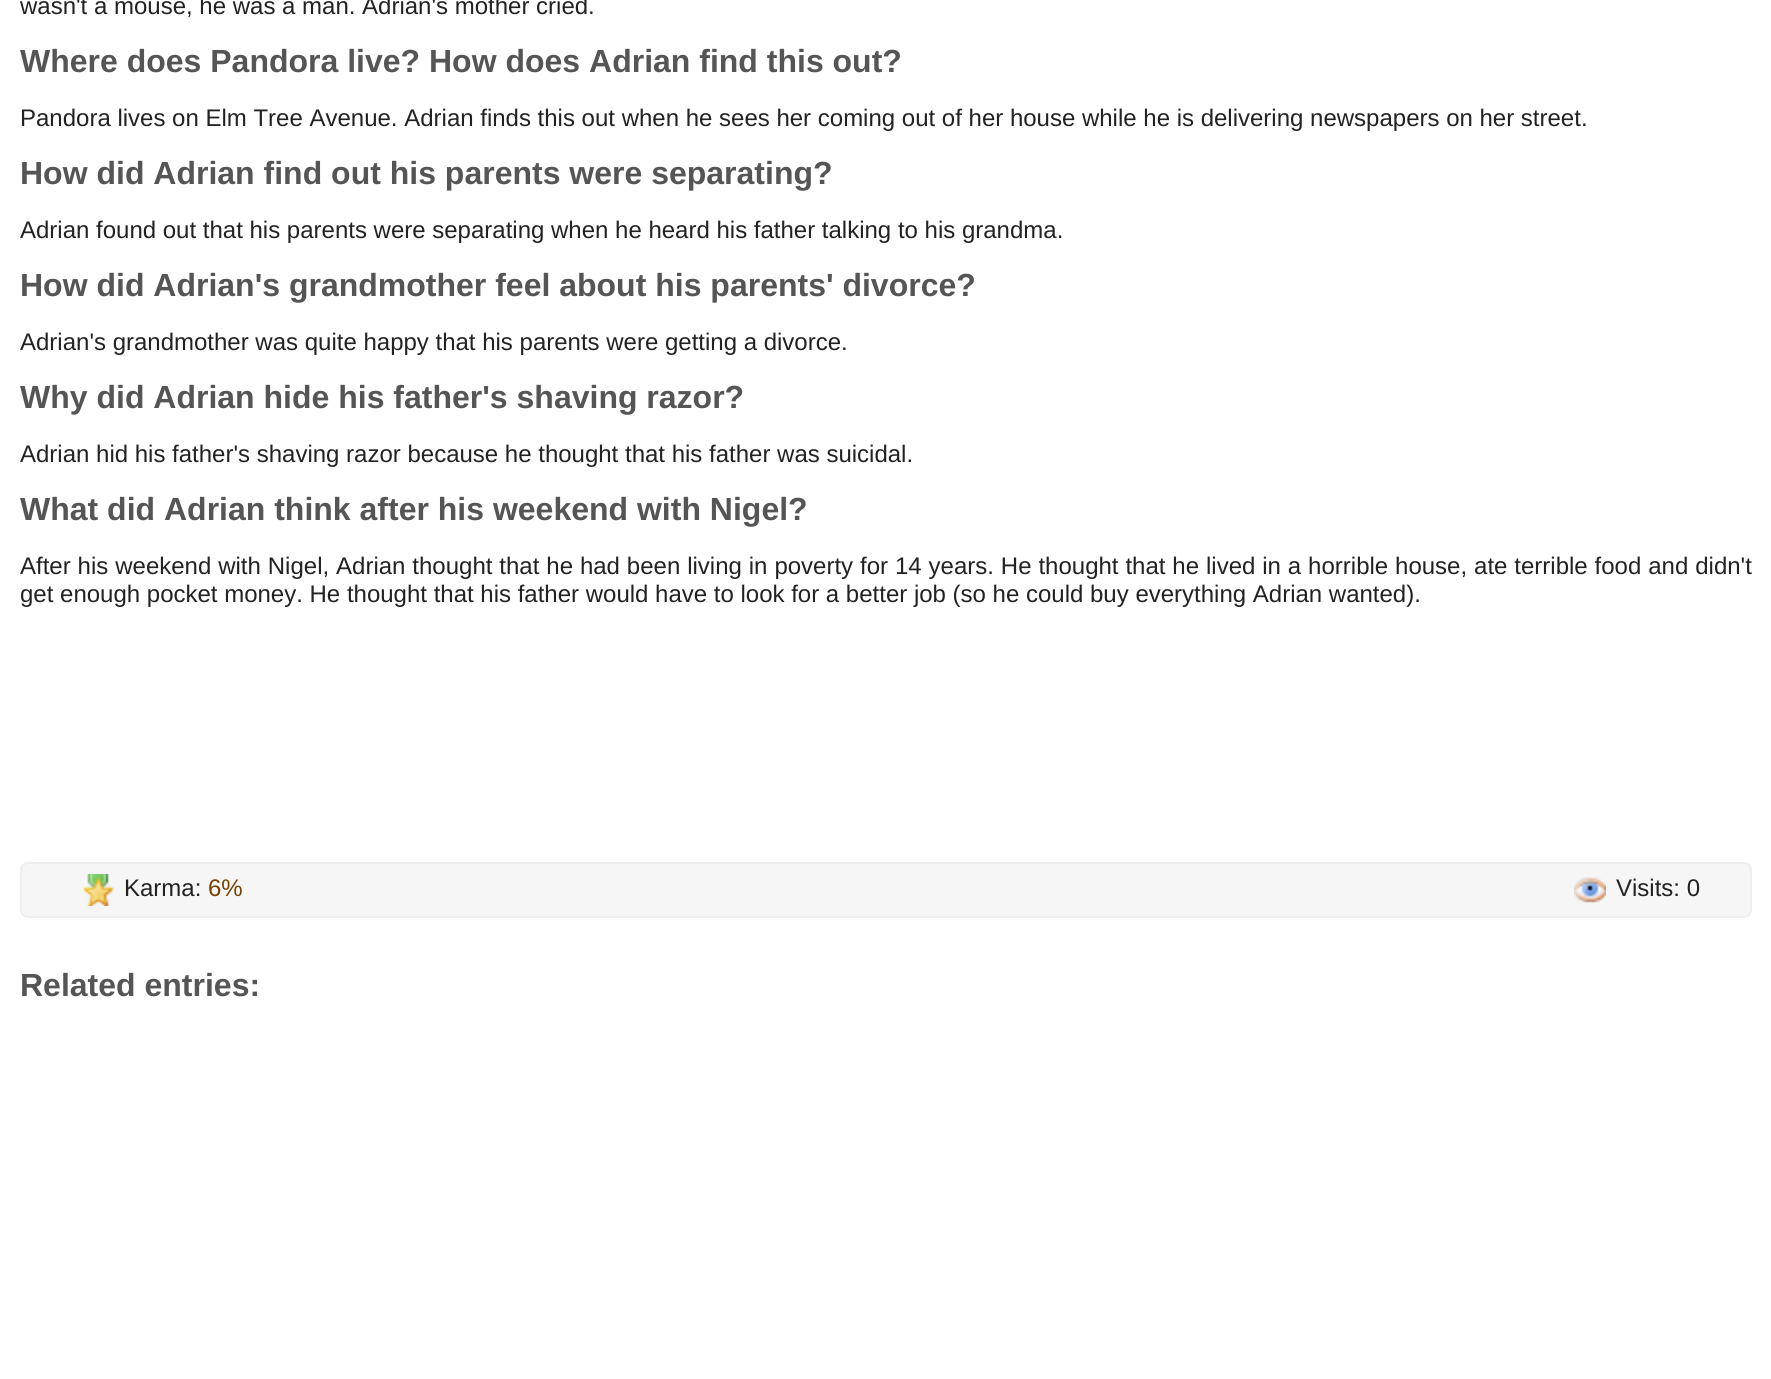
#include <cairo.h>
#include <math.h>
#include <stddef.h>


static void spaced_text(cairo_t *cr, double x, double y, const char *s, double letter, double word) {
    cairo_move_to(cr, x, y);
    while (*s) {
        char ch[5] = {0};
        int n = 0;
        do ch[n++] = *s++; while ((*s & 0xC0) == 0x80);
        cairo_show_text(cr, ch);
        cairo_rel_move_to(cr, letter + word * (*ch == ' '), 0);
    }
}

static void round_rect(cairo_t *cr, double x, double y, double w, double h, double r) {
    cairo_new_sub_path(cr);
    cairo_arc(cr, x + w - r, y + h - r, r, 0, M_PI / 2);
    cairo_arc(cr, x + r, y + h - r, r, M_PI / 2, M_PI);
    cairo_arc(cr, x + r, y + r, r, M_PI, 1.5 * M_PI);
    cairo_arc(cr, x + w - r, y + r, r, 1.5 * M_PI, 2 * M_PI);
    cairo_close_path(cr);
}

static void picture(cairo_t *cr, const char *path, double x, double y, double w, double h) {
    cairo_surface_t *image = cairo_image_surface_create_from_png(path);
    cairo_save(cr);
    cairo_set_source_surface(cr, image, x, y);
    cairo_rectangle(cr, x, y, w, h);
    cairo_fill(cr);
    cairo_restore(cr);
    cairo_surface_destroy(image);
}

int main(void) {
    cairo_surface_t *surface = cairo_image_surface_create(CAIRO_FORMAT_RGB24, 1771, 1379);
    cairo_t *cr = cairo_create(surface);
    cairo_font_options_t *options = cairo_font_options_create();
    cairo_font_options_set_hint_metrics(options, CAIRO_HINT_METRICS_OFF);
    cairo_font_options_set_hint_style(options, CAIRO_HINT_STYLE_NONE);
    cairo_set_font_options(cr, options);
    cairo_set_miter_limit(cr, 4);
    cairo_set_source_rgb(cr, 1, 1, 1);
    cairo_paint(cr);
    cairo_select_font_face(cr, "Liberation Sans", CAIRO_FONT_SLANT_NORMAL, CAIRO_FONT_WEIGHT_NORMAL);
    cairo_set_font_size(cr, 24);
    cairo_set_source_rgb(cr, 0.133, 0.133, 0.133);
    cairo_move_to(cr, 20, 14);
    cairo_show_text(cr, "wasn't a mouse, he was a man. Adrian's mother cried.");
    cairo_select_font_face(cr, "Liberation Sans", CAIRO_FONT_SLANT_NORMAL, CAIRO_FONT_WEIGHT_BOLD);
    cairo_set_font_size(cr, 32);
    cairo_set_source_rgb(cr, 0.333, 0.333, 0.333);
    cairo_move_to(cr, 20, 72);
    cairo_show_text(cr, "Where does Pandora live? How does Adrian find this out?");
    cairo_select_font_face(cr, "Liberation Sans", CAIRO_FONT_SLANT_NORMAL, CAIRO_FONT_WEIGHT_NORMAL);
    cairo_set_font_size(cr, 24);
    cairo_set_source_rgb(cr, 0.133, 0.133, 0.133);
    cairo_move_to(cr, 20, 126);
    cairo_show_text(cr, "Pandora lives on Elm Tree Avenue. Adrian finds this out when he sees her coming out of her house while he is delivering newspapers on her street.");
    cairo_select_font_face(cr, "Liberation Sans", CAIRO_FONT_SLANT_NORMAL, CAIRO_FONT_WEIGHT_BOLD);
    cairo_set_font_size(cr, 32);
    cairo_set_source_rgb(cr, 0.333, 0.333, 0.333);
    cairo_move_to(cr, 20, 184);
    cairo_show_text(cr, "How did Adrian find out his parents were separating?");
    cairo_select_font_face(cr, "Liberation Sans", CAIRO_FONT_SLANT_NORMAL, CAIRO_FONT_WEIGHT_NORMAL);
    cairo_set_font_size(cr, 24);
    cairo_set_source_rgb(cr, 0.133, 0.133, 0.133);
    cairo_move_to(cr, 20, 238);
    cairo_show_text(cr, "Adrian found out that his parents were separating when he heard his father talking to his grandma.");
    cairo_select_font_face(cr, "Liberation Sans", CAIRO_FONT_SLANT_NORMAL, CAIRO_FONT_WEIGHT_BOLD);
    cairo_set_font_size(cr, 32);
    cairo_set_source_rgb(cr, 0.333, 0.333, 0.333);
    cairo_move_to(cr, 20, 296);
    cairo_show_text(cr, "How did Adrian's grandmother feel about his parents' divorce?");
    cairo_select_font_face(cr, "Liberation Sans", CAIRO_FONT_SLANT_NORMAL, CAIRO_FONT_WEIGHT_NORMAL);
    cairo_set_font_size(cr, 24);
    cairo_set_source_rgb(cr, 0.133, 0.133, 0.133);
    cairo_move_to(cr, 20, 350);
    cairo_show_text(cr, "Adrian's grandmother was quite happy that his parents were getting a divorce.");
    cairo_select_font_face(cr, "Liberation Sans", CAIRO_FONT_SLANT_NORMAL, CAIRO_FONT_WEIGHT_BOLD);
    cairo_set_font_size(cr, 32);
    cairo_set_source_rgb(cr, 0.333, 0.333, 0.333);
    cairo_move_to(cr, 20, 408);
    cairo_show_text(cr, "Why did Adrian hide his father's shaving razor?");
    cairo_select_font_face(cr, "Liberation Sans", CAIRO_FONT_SLANT_NORMAL, CAIRO_FONT_WEIGHT_NORMAL);
    cairo_set_font_size(cr, 24);
    cairo_set_source_rgb(cr, 0.133, 0.133, 0.133);
    cairo_move_to(cr, 20, 462);
    cairo_show_text(cr, "Adrian hid his father's shaving razor because he thought that his father was suicidal.");
    cairo_select_font_face(cr, "Liberation Sans", CAIRO_FONT_SLANT_NORMAL, CAIRO_FONT_WEIGHT_BOLD);
    cairo_set_font_size(cr, 32);
    cairo_set_source_rgb(cr, 0.333, 0.333, 0.333);
    cairo_move_to(cr, 20, 520);
    cairo_show_text(cr, "What did Adrian think after his weekend with Nigel?");
    cairo_select_font_face(cr, "Liberation Sans", CAIRO_FONT_SLANT_NORMAL, CAIRO_FONT_WEIGHT_NORMAL);
    cairo_set_font_size(cr, 24);
    cairo_set_source_rgb(cr, 0.133, 0.133, 0.133);
    spaced_text(cr, 20, 574, "After his weekend with Nigel, Adrian thought that he had been living in poverty for 14 years. He thought that he lived in a horrible house, ate terrible food and didn't", 0, 0.25);
    cairo_move_to(cr, 20, 602);
    cairo_show_text(cr, "get enough pocket money. He thought that his father would have to look for a better job (so he could buy everything Adrian wanted).");
    cairo_set_source_rgb(cr, 0.961, 0.961, 0.961);
    round_rect(cr, 21, 863, 1730, 54, 7);
    cairo_fill_preserve(cr);
    cairo_set_source_rgb(cr, 0.933, 0.933, 0.933);
    cairo_stroke(cr);
    picture(cr, "img1.png", 83, 874, 31, 32);
    cairo_set_source_rgb(cr, 0.133, 0.133, 0.133);
    cairo_move_to(cr, 124, 896);
    cairo_show_text(cr, "Karma:");
    cairo_set_source_rgb(cr, 0.471, 0.259, 0);
    cairo_move_to(cr, 208, 896);
    cairo_show_text(cr, "6%");
    picture(cr, "img2.png", 1574, 877, 32, 26);
    cairo_set_source_rgb(cr, 0.133, 0.133, 0.133);
    cairo_move_to(cr, 1616, 896);
    cairo_show_text(cr, "Visits: 0");
    cairo_select_font_face(cr, "Liberation Sans", CAIRO_FONT_SLANT_NORMAL, CAIRO_FONT_WEIGHT_BOLD);
    cairo_set_font_size(cr, 32);
    cairo_set_source_rgb(cr, 0.333, 0.333, 0.333);
    cairo_move_to(cr, 20, 996);
    cairo_show_text(cr, "Related entries:");
    cairo_surface_write_to_png(surface, "page.png");
    cairo_font_options_destroy(options);
    cairo_destroy(cr);
    cairo_surface_destroy(surface);
    return 0;
}
